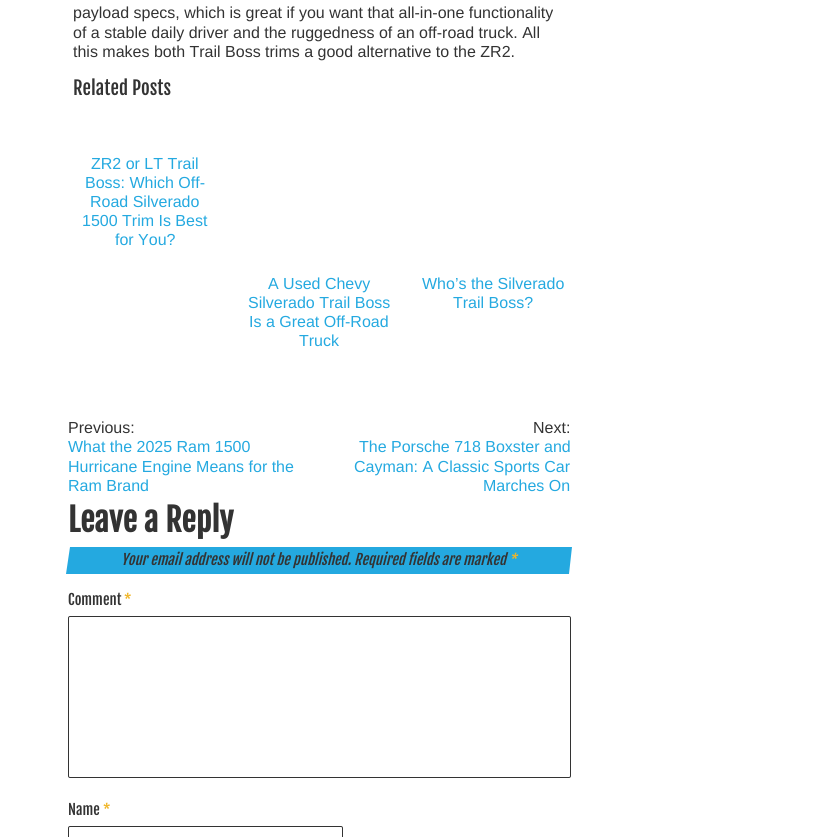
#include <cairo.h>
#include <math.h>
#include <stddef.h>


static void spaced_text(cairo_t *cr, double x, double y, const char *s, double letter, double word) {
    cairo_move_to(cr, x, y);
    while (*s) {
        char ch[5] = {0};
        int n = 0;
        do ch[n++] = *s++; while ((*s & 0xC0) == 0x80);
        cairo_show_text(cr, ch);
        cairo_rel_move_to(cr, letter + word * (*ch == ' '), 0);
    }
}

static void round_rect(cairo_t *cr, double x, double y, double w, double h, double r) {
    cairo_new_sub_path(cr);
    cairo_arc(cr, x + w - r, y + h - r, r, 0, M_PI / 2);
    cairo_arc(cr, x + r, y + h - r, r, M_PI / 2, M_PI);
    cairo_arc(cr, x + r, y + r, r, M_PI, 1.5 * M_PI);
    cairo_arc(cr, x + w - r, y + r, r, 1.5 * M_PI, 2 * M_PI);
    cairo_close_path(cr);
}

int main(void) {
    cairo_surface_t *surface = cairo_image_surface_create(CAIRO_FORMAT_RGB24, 816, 837);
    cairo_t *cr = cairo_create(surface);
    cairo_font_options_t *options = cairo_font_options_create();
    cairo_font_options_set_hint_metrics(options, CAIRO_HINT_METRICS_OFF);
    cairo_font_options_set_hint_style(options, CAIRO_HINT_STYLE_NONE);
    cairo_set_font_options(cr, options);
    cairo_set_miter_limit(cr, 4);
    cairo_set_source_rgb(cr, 1, 1, 1);
    cairo_paint(cr);
    cairo_select_font_face(cr, "Liberation Sans", CAIRO_FONT_SLANT_NORMAL, CAIRO_FONT_WEIGHT_NORMAL);
    cairo_set_font_size(cr, 16);
    cairo_set_source_rgb(cr, 0.2, 0.2, 0.2);
    cairo_move_to(cr, 73, 18);
    cairo_show_text(cr, "payload specs, which is great if you want that all-in-one functionality");
    cairo_move_to(cr, 73, 38);
    cairo_show_text(cr, "of a stable daily driver and the ruggedness of an off-road truck. All");
    cairo_move_to(cr, 73, 57);
    cairo_show_text(cr, "this makes both Trail Boss trims a good alternative to the ZR2.");
    cairo_select_font_face(cr, "Fjalla One", CAIRO_FONT_SLANT_NORMAL, CAIRO_FONT_WEIGHT_NORMAL);
    cairo_set_font_size(cr, 18.75);
    cairo_move_to(cr, 73, 95);
    cairo_show_text(cr, "Related Posts");
    cairo_select_font_face(cr, "Liberation Sans", CAIRO_FONT_SLANT_NORMAL, CAIRO_FONT_WEIGHT_NORMAL);
    cairo_set_font_size(cr, 16);
    cairo_set_source_rgb(cr, 0.141, 0.663, 0.878);
    cairo_move_to(cr, 91, 169);
    cairo_show_text(cr, "ZR2 or LT Trail");
    cairo_move_to(cr, 85, 188);
    cairo_show_text(cr, "Boss: Which Off-");
    cairo_move_to(cr, 90, 207);
    cairo_show_text(cr, "Road Silverado");
    cairo_move_to(cr, 82, 226);
    cairo_show_text(cr, "1500 Trim Is Best");
    cairo_move_to(cr, 115, 245);
    cairo_show_text(cr, "for You?");
    cairo_move_to(cr, 268, 289);
    cairo_show_text(cr, "A Used Chevy");
    cairo_move_to(cr, 248, 308);
    cairo_show_text(cr, "Silverado Trail Boss");
    cairo_move_to(cr, 249, 327);
    cairo_show_text(cr, "Is a Great Off-Road");
    cairo_move_to(cr, 299, 346);
    cairo_show_text(cr, "Truck");
    cairo_move_to(cr, 422, 289);
    cairo_show_text(cr, "Who’s the Silverado");
    cairo_move_to(cr, 453, 308);
    cairo_show_text(cr, "Trail Boss?");
    cairo_set_source_rgb(cr, 0.2, 0.2, 0.2);
    cairo_move_to(cr, 68, 433);
    cairo_show_text(cr, "Previous:");
    cairo_set_source_rgb(cr, 0.141, 0.663, 0.878);
    cairo_move_to(cr, 68, 452);
    cairo_show_text(cr, "What the 2025 Ram 1500");
    cairo_move_to(cr, 68, 472);
    cairo_show_text(cr, "Hurricane Engine Means for the");
    cairo_move_to(cr, 68, 491);
    cairo_show_text(cr, "Ram Brand");
    cairo_set_source_rgb(cr, 0.2, 0.2, 0.2);
    cairo_move_to(cr, 533, 433);
    cairo_show_text(cr, "Next:");
    cairo_set_source_rgb(cr, 0.141, 0.663, 0.878);
    cairo_move_to(cr, 359, 452);
    cairo_show_text(cr, "The Porsche 718 Boxster and");
    cairo_move_to(cr, 354, 472);
    cairo_show_text(cr, "Cayman: A Classic Sports Car");
    cairo_move_to(cr, 483, 491);
    cairo_show_text(cr, "Marches On");
    cairo_select_font_face(cr, "Fjalla One", CAIRO_FONT_SLANT_NORMAL, CAIRO_FONT_WEIGHT_BOLD);
    cairo_set_font_size(cr, 32);
    cairo_set_source_rgb(cr, 0.2, 0.2, 0.2);
    cairo_move_to(cr, 68, 532);
    cairo_show_text(cr, "Leave a Reply");
    cairo_set_source_rgb(cr, 0.141, 0.663, 0.878);
    cairo_new_path(cr);
    cairo_move_to(cr, 70, 547);
    cairo_line_to(cr, 572, 547);
    cairo_line_to(cr, 569, 574);
    cairo_line_to(cr, 66, 574);
    cairo_close_path(cr);
    cairo_fill(cr);
    cairo_select_font_face(cr, "Fjalla One", CAIRO_FONT_SLANT_ITALIC, CAIRO_FONT_WEIGHT_NORMAL);
    cairo_set_font_size(cr, 14.5);
    cairo_set_source_rgb(cr, 0.2, 0.2, 0.2);
    spaced_text(cr, 121, 565, "Your email address will not be published. Required fields are marked", -0.05, 0);
    cairo_set_source_rgb(cr, 0.941, 0.714, 0.161);
    cairo_move_to(cr, 509, 565);
    cairo_show_text(cr, "*");
    cairo_select_font_face(cr, "Fjalla One", CAIRO_FONT_SLANT_NORMAL, CAIRO_FONT_WEIGHT_NORMAL);
    cairo_set_source_rgb(cr, 0.2, 0.2, 0.2);
    cairo_move_to(cr, 68, 605);
    cairo_show_text(cr, "Comment");
    cairo_set_source_rgb(cr, 0.941, 0.714, 0.161);
    cairo_move_to(cr, 124, 605);
    cairo_show_text(cr, "*");
    round_rect(cr, 68.5, 616.5, 502, 161, 1.5);
    cairo_set_source_rgb(cr, 0.2, 0.2, 0.2);
    cairo_set_line_width(cr, 1);
    cairo_stroke(cr);
    cairo_move_to(cr, 68, 815);
    cairo_show_text(cr, "Name");
    cairo_set_source_rgb(cr, 0.941, 0.714, 0.161);
    cairo_move_to(cr, 103, 815);
    cairo_show_text(cr, "*");
    round_rect(cr, 68.5, 826.5, 274, 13, 1.5);
    cairo_set_source_rgb(cr, 0.2, 0.2, 0.2);
    cairo_stroke(cr);
    cairo_surface_write_to_png(surface, "page.png");
    cairo_font_options_destroy(options);
    cairo_destroy(cr);
    cairo_surface_destroy(surface);
    return 0;
}
